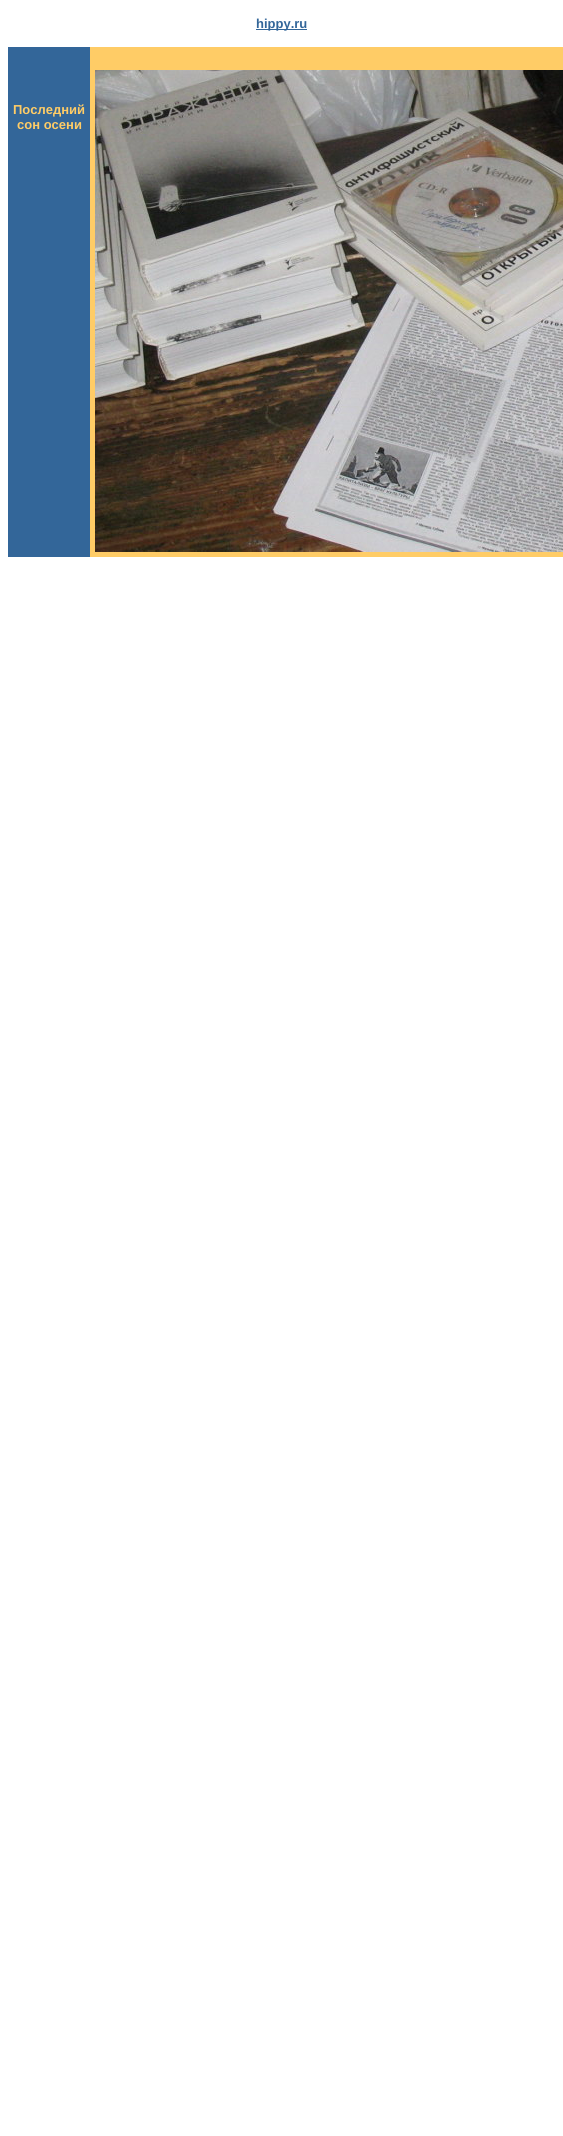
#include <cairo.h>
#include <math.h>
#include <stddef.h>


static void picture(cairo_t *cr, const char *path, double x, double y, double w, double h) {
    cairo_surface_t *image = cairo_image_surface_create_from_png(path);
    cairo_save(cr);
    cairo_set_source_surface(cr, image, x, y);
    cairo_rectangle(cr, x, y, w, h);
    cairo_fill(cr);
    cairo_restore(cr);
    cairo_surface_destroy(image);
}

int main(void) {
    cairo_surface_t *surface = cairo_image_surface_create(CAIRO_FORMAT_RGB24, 563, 2136);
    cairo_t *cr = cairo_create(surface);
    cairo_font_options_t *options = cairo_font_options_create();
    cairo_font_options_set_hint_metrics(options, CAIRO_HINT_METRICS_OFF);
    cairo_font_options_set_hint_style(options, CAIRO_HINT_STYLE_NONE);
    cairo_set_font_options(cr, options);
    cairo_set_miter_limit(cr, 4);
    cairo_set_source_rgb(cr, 1, 1, 1);
    cairo_paint(cr);
    cairo_set_source_rgb(cr, 0.2, 0.4, 0.6);
    cairo_rectangle(cr, 256, 29, 51, 1);
    cairo_fill(cr);
    cairo_select_font_face(cr, "Liberation Sans", CAIRO_FONT_SLANT_NORMAL, CAIRO_FONT_WEIGHT_BOLD);
    cairo_set_font_size(cr, 13);
    cairo_move_to(cr, 256, 28);
    cairo_show_text(cr, "hippy.ru");
    cairo_rectangle(cr, 8, 47, 82, 510);
    cairo_fill(cr);
    cairo_set_source_rgb(cr, 1, 0.8, 0.4);
    cairo_move_to(cr, 13, 114);
    cairo_show_text(cr, "Последний");
    cairo_move_to(cr, 17, 129);
    cairo_show_text(cr, "сон осени");
    cairo_rectangle(cr, 90, 47, 473, 510);
    cairo_fill(cr);
    picture(cr, "img1.png", 95, 70, 468, 482);
    cairo_surface_write_to_png(surface, "page.png");
    cairo_font_options_destroy(options);
    cairo_destroy(cr);
    cairo_surface_destroy(surface);
    return 0;
}
